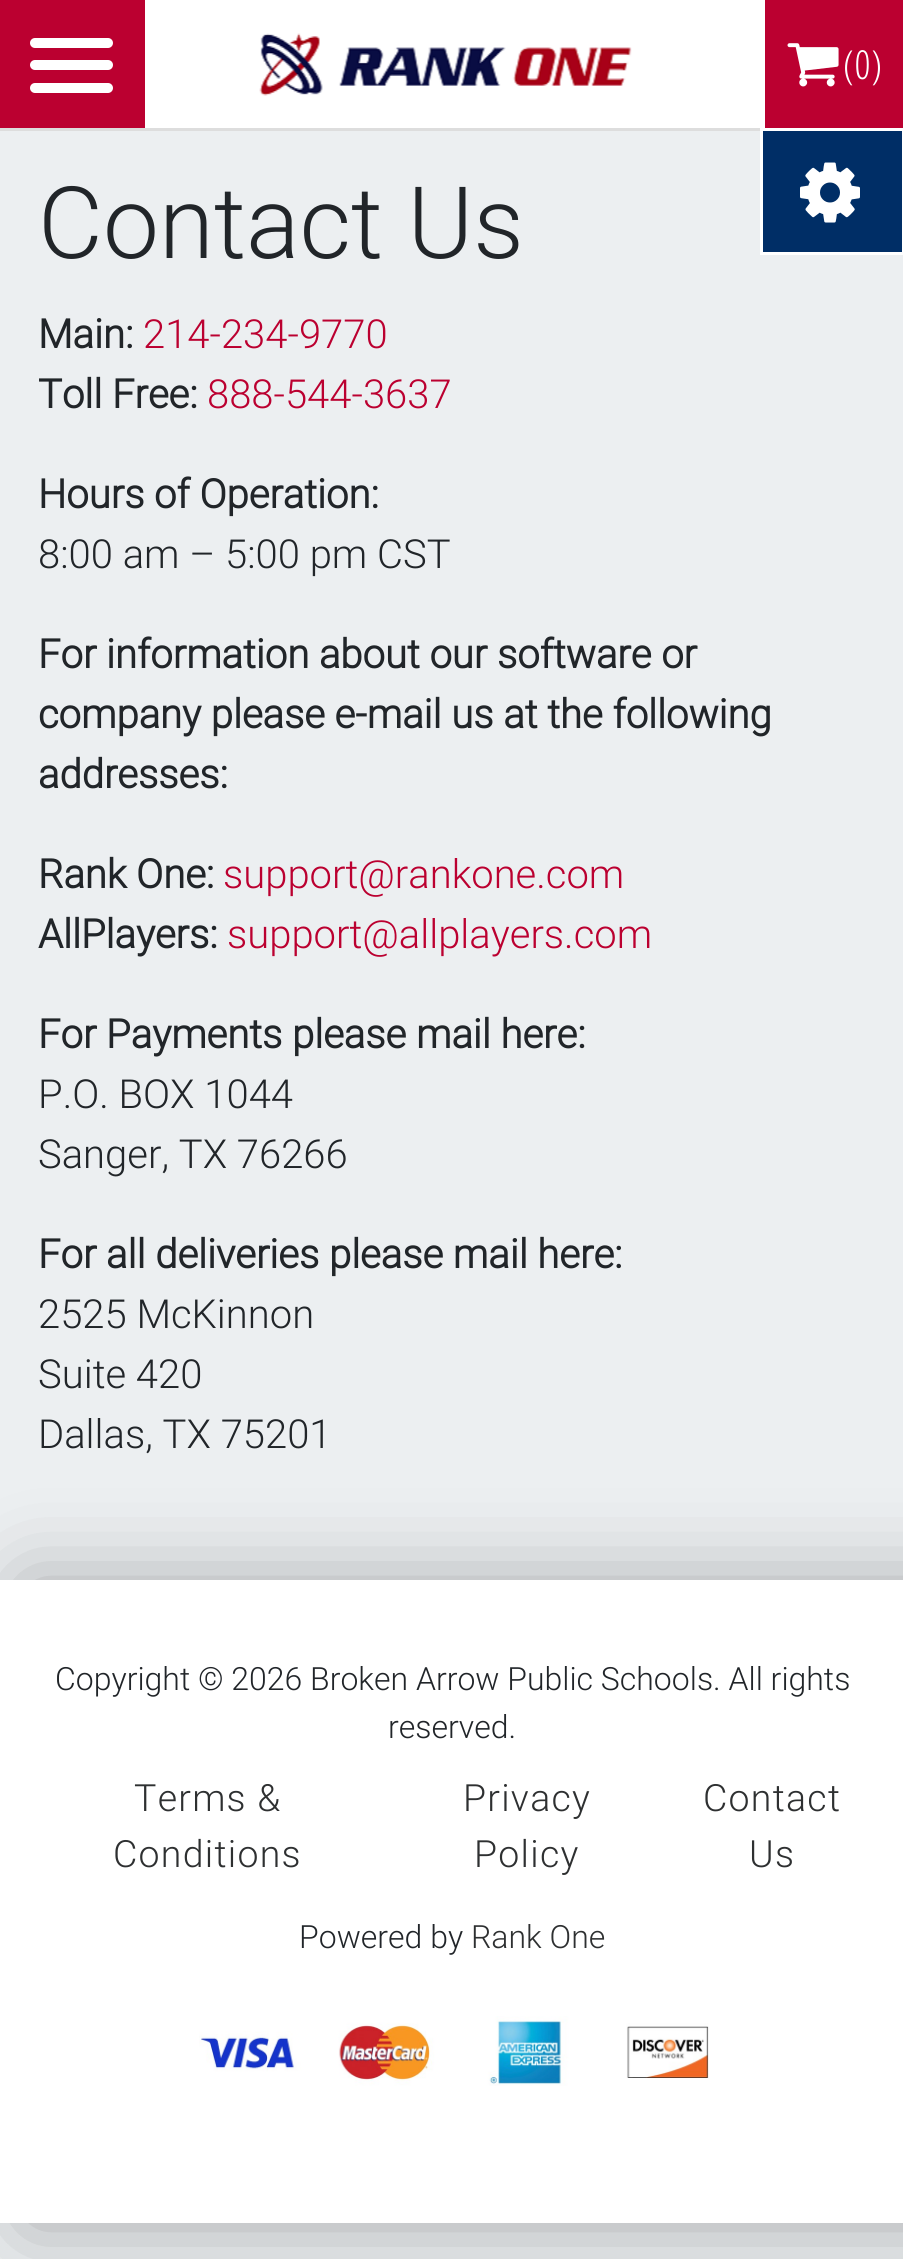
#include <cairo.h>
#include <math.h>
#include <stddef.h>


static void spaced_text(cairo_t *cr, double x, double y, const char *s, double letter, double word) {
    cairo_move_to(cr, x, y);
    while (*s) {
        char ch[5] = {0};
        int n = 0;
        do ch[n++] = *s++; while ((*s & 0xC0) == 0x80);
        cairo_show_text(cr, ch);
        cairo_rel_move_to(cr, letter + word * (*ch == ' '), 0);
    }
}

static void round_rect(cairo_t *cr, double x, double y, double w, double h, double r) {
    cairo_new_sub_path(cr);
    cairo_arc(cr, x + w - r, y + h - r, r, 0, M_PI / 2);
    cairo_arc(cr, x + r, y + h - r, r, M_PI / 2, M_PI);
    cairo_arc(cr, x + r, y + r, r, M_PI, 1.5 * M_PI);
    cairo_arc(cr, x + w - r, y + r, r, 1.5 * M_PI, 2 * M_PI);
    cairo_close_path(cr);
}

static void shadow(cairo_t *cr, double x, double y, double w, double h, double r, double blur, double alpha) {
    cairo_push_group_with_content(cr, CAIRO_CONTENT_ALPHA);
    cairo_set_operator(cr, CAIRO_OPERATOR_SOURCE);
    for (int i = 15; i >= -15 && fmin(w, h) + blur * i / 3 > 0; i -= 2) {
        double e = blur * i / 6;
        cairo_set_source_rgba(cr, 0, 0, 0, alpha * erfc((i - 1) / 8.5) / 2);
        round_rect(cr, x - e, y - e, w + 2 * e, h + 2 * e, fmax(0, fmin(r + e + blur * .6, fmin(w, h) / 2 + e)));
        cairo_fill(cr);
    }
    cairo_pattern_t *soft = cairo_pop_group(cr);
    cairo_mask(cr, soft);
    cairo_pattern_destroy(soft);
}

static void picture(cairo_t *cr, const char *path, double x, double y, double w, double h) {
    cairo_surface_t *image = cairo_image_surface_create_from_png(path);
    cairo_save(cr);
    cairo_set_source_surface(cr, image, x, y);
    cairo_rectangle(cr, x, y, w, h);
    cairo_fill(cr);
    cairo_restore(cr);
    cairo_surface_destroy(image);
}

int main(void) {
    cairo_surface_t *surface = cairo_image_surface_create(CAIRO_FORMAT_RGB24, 903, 2259);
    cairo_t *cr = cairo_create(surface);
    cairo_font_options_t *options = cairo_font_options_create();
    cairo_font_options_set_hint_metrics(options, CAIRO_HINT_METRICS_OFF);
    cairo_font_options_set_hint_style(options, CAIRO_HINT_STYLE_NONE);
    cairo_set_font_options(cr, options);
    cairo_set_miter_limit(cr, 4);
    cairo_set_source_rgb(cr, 0.925, 0.937, 0.945);
    cairo_paint(cr);
    cairo_set_source_rgb(cr, 1, 1, 1);
    cairo_rectangle(cr, 145, 0, 620, 128);
    cairo_fill(cr);
    cairo_set_source_rgb(cr, 0.867, 0.867, 0.867);
    cairo_rectangle(cr, 0, 128, 760, 3);
    cairo_fill(cr);
    cairo_set_source_rgb(cr, 0.733, 0, 0.188);
    cairo_rectangle(cr, 0, 0, 145, 128);
    cairo_fill(cr);
    cairo_set_source_rgb(cr, 1, 1, 1);
    round_rect(cr, 30, 38, 83, 10, 5);
    cairo_fill(cr);
    round_rect(cr, 30, 60, 83, 10, 5);
    cairo_fill(cr);
    round_rect(cr, 30, 83, 83, 10, 5);
    cairo_fill(cr);
    picture(cr, "img1.png", 259, 33, 373, 63);
    cairo_set_source_rgb(cr, 0.733, 0, 0.188);
    cairo_rectangle(cr, 765, 0, 138, 128);
    cairo_fill(cr);
    picture(cr, "img2.png", 787, 43, 52, 44);
    cairo_select_font_face(cr, "Open Sans Condensed Light", CAIRO_FONT_SLANT_NORMAL, CAIRO_FONT_WEIGHT_NORMAL);
    cairo_set_font_size(cr, 40);
    cairo_set_source_rgb(cr, 1, 1, 1);
    spaced_text(cr, 843, 79, "(0)", 0.5, 0);
    cairo_set_source_rgb(cr, 0, 0.18, 0.4);
    cairo_rectangle(cr, 761.5, 129.5, 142, 124);
    cairo_fill_preserve(cr);
    cairo_set_source_rgb(cr, 1, 1, 1);
    cairo_set_line_width(cr, 3);
    cairo_stroke(cr);
    picture(cr, "img3.png", 800, 162, 60, 61);
    cairo_select_font_face(cr, "Roboto Light", CAIRO_FONT_SLANT_NORMAL, CAIRO_FONT_WEIGHT_NORMAL);
    cairo_set_font_size(cr, 100);
    cairo_set_source_rgb(cr, 0.129, 0.145, 0.161);
    cairo_move_to(cr, 38, 258);
    cairo_show_text(cr, "Contact Us");
    cairo_select_font_face(cr, "Roboto", CAIRO_FONT_SLANT_NORMAL, CAIRO_FONT_WEIGHT_BOLD);
    cairo_set_font_size(cr, 40);
    cairo_move_to(cr, 38, 348);
    cairo_show_text(cr, "Main:");
    cairo_select_font_face(cr, "Roboto Light", CAIRO_FONT_SLANT_NORMAL, CAIRO_FONT_WEIGHT_NORMAL);
    cairo_set_source_rgb(cr, 0.733, 0, 0.188);
    cairo_move_to(cr, 143, 348);
    cairo_show_text(cr, "214-234-9770");
    cairo_select_font_face(cr, "Roboto", CAIRO_FONT_SLANT_NORMAL, CAIRO_FONT_WEIGHT_BOLD);
    cairo_set_source_rgb(cr, 0.129, 0.145, 0.161);
    cairo_move_to(cr, 38, 408);
    cairo_show_text(cr, "Toll Free:");
    cairo_select_font_face(cr, "Roboto Light", CAIRO_FONT_SLANT_NORMAL, CAIRO_FONT_WEIGHT_NORMAL);
    cairo_set_source_rgb(cr, 0.733, 0, 0.188);
    cairo_move_to(cr, 207, 408);
    cairo_show_text(cr, "888-544-3637");
    cairo_select_font_face(cr, "Roboto", CAIRO_FONT_SLANT_NORMAL, CAIRO_FONT_WEIGHT_BOLD);
    cairo_set_source_rgb(cr, 0.129, 0.145, 0.161);
    cairo_move_to(cr, 38, 508);
    cairo_show_text(cr, "Hours of Operation:");
    cairo_select_font_face(cr, "Roboto Light", CAIRO_FONT_SLANT_NORMAL, CAIRO_FONT_WEIGHT_NORMAL);
    cairo_move_to(cr, 38, 568);
    cairo_show_text(cr, "8:00 am – 5:00 pm CST");
    cairo_select_font_face(cr, "Roboto", CAIRO_FONT_SLANT_NORMAL, CAIRO_FONT_WEIGHT_BOLD);
    cairo_move_to(cr, 38, 668);
    cairo_show_text(cr, "For information about our software or");
    cairo_move_to(cr, 38, 728);
    cairo_show_text(cr, "company please e-mail us at the following");
    cairo_move_to(cr, 38, 788);
    cairo_show_text(cr, "addresses:");
    cairo_move_to(cr, 38, 888);
    cairo_show_text(cr, "Rank One:");
    cairo_select_font_face(cr, "Roboto Light", CAIRO_FONT_SLANT_NORMAL, CAIRO_FONT_WEIGHT_NORMAL);
    cairo_set_source_rgb(cr, 0.733, 0, 0.188);
    cairo_move_to(cr, 223, 888);
    cairo_show_text(cr, "support@rankone.com");
    cairo_select_font_face(cr, "Roboto", CAIRO_FONT_SLANT_NORMAL, CAIRO_FONT_WEIGHT_BOLD);
    cairo_set_source_rgb(cr, 0.129, 0.145, 0.161);
    cairo_move_to(cr, 38, 948);
    cairo_show_text(cr, "AllPlayers:");
    cairo_select_font_face(cr, "Roboto Light", CAIRO_FONT_SLANT_NORMAL, CAIRO_FONT_WEIGHT_NORMAL);
    cairo_set_source_rgb(cr, 0.733, 0, 0.188);
    cairo_move_to(cr, 227, 948);
    cairo_show_text(cr, "support@allplayers.com");
    cairo_select_font_face(cr, "Roboto", CAIRO_FONT_SLANT_NORMAL, CAIRO_FONT_WEIGHT_BOLD);
    cairo_set_source_rgb(cr, 0.129, 0.145, 0.161);
    cairo_move_to(cr, 38, 1048);
    cairo_show_text(cr, "For Payments please mail here:");
    cairo_select_font_face(cr, "Roboto Light", CAIRO_FONT_SLANT_NORMAL, CAIRO_FONT_WEIGHT_NORMAL);
    cairo_move_to(cr, 38, 1108);
    cairo_show_text(cr, "P.O. BOX 1044");
    cairo_move_to(cr, 38, 1168);
    cairo_show_text(cr, "Sanger, TX 76266");
    cairo_select_font_face(cr, "Roboto", CAIRO_FONT_SLANT_NORMAL, CAIRO_FONT_WEIGHT_BOLD);
    cairo_move_to(cr, 38, 1268);
    cairo_show_text(cr, "For all deliveries please mail here:");
    cairo_select_font_face(cr, "Roboto Light", CAIRO_FONT_SLANT_NORMAL, CAIRO_FONT_WEIGHT_NORMAL);
    cairo_move_to(cr, 38, 1328);
    cairo_show_text(cr, "2525 McKinnon");
    cairo_move_to(cr, 38, 1388);
    cairo_show_text(cr, "Suite 420");
    cairo_move_to(cr, 38, 1448);
    cairo_show_text(cr, "Dallas, TX 75201");
    cairo_set_source_rgb(cr, 0, 0, 0);
    shadow(cr, 25, 1583, 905, 642, 0, 44, 0.3);
    cairo_set_source_rgb(cr, 1, 1, 1);
    cairo_rectangle(cr, 0, 1580, 903, 643);
    cairo_fill(cr);
    cairo_set_font_size(cr, 32);
    cairo_set_source_rgb(cr, 0.129, 0.145, 0.161);
    cairo_move_to(cr, 55, 1690);
    cairo_show_text(cr, "Copyright © 2026 Broken Arrow Public Schools. All rights");
    cairo_move_to(cr, 388, 1738);
    cairo_show_text(cr, "reserved.");
    cairo_set_font_size(cr, 37.5);
    cairo_set_source_rgb(cr, 0.18, 0.188, 0.192);
    spaced_text(cr, 134, 1811, "Terms &", 1.25, 0);
    spaced_text(cr, 113, 1867, "Conditions", 1.25, 0);
    spaced_text(cr, 463, 1811, "Privacy", 1.25, 0);
    spaced_text(cr, 474, 1867, "Policy", 1.25, 0);
    spaced_text(cr, 703, 1811, "Contact", 1.25, 0);
    spaced_text(cr, 749, 1867, "Us", 1.25, 0);
    cairo_set_font_size(cr, 32);
    cairo_set_source_rgb(cr, 0.129, 0.145, 0.161);
    cairo_move_to(cr, 299, 1948);
    cairo_show_text(cr, "Powered by");
    cairo_set_source_rgb(cr, 0.18, 0.188, 0.192);
    cairo_move_to(cr, 471, 1948);
    cairo_show_text(cr, "Rank One");
    picture(cr, "img4.png", 199, 2016, 510, 70);
    cairo_surface_write_to_png(surface, "page.png");
    cairo_font_options_destroy(options);
    cairo_destroy(cr);
    cairo_surface_destroy(surface);
    return 0;
}
